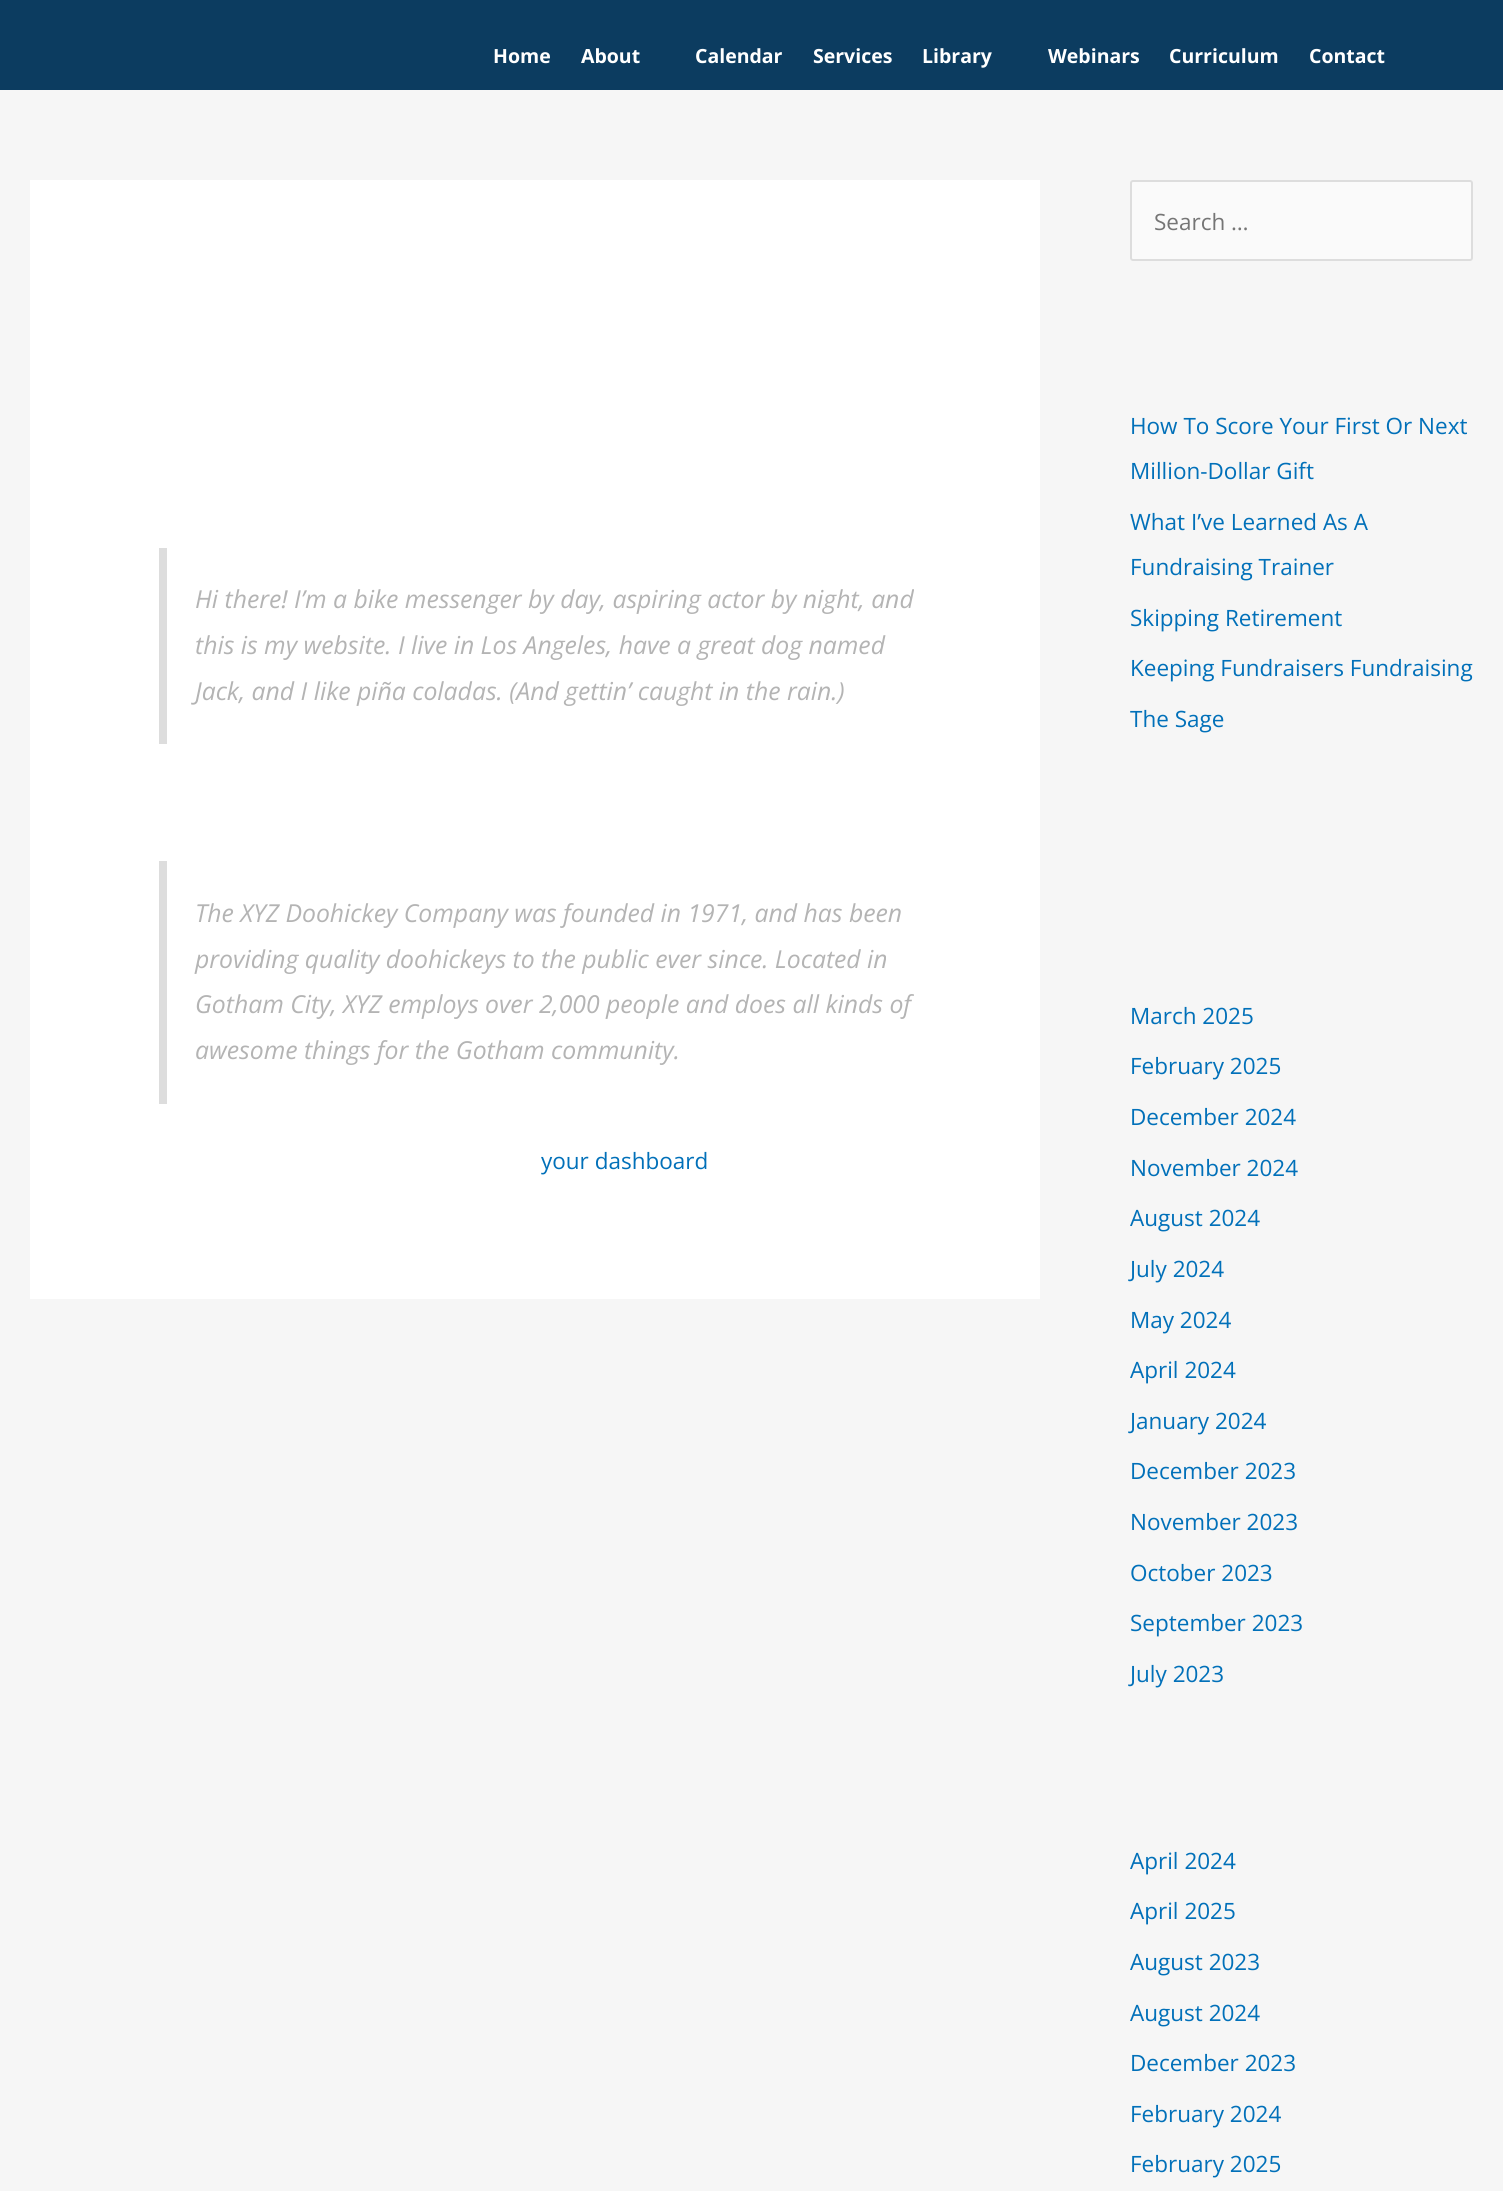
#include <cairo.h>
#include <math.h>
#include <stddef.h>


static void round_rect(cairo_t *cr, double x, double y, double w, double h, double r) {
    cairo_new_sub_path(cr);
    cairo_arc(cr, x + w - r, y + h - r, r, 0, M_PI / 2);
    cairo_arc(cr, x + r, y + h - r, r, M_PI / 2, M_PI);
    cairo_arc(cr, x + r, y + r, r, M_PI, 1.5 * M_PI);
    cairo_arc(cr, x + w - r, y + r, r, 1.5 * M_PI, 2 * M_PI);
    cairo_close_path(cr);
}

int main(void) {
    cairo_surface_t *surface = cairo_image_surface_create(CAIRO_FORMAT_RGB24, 1503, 2191);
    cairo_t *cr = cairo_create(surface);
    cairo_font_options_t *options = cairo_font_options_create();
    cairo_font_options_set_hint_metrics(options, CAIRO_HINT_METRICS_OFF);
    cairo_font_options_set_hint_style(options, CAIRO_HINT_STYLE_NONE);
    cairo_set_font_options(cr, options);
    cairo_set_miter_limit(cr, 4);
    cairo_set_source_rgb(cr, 0.961, 0.961, 0.961);
    cairo_paint(cr);
    cairo_set_source_rgb(cr, 0.047, 0.235, 0.376);
    cairo_rectangle(cr, 0, 0, 1503, 90);
    cairo_fill(cr);
    cairo_select_font_face(cr, "Open Sans", CAIRO_FONT_SLANT_NORMAL, CAIRO_FONT_WEIGHT_BOLD);
    cairo_set_font_size(cr, 19.5);
    cairo_set_source_rgb(cr, 1, 1, 1);
    cairo_move_to(cr, 493, 63);
    cairo_show_text(cr, "Home");
    cairo_move_to(cr, 581, 63);
    cairo_show_text(cr, "About");
    cairo_move_to(cr, 695, 63);
    cairo_show_text(cr, "Calendar");
    cairo_move_to(cr, 813, 63);
    cairo_show_text(cr, "Services");
    cairo_move_to(cr, 922, 63);
    cairo_show_text(cr, "Library");
    cairo_move_to(cr, 1048, 63);
    cairo_show_text(cr, "Webinars");
    cairo_move_to(cr, 1169, 63);
    cairo_show_text(cr, "Curriculum");
    cairo_move_to(cr, 1309, 63);
    cairo_show_text(cr, "Contact");
    cairo_rectangle(cr, 30, 180, 1010, 1119);
    cairo_fill(cr);
    cairo_set_source_rgb(cr, 0.867, 0.867, 0.867);
    cairo_rectangle(cr, 159, 548, 8, 196);
    cairo_fill(cr);
    cairo_select_font_face(cr, "Open Sans", CAIRO_FONT_SLANT_ITALIC, CAIRO_FONT_WEIGHT_NORMAL);
    cairo_set_font_size(cr, 24.75);
    cairo_set_source_rgb(cr, 0.706, 0.706, 0.706);
    cairo_move_to(cr, 195, 608);
    cairo_show_text(cr, "Hi there! I’m a bike messenger by day, aspiring actor by night, and");
    cairo_move_to(cr, 195, 654);
    cairo_show_text(cr, "this is my website. I live in Los Angeles, have a great dog named");
    cairo_move_to(cr, 195, 700);
    cairo_show_text(cr, "Jack, and I like piña coladas. (And gettin’ caught in the rain.)");
    cairo_set_source_rgb(cr, 0.867, 0.867, 0.867);
    cairo_rectangle(cr, 159, 861, 8, 243);
    cairo_fill(cr);
    cairo_set_source_rgb(cr, 0.706, 0.706, 0.706);
    cairo_move_to(cr, 195, 922);
    cairo_show_text(cr, "The XYZ Doohickey Company was founded in 1971, and has been");
    cairo_move_to(cr, 195, 968);
    cairo_show_text(cr, "providing quality doohickeys to the public ever since. Located in");
    cairo_move_to(cr, 195, 1013);
    cairo_show_text(cr, "Gotham City, XYZ employs over 2,000 people and does all kinds of");
    cairo_move_to(cr, 195, 1059);
    cairo_show_text(cr, "awesome things for the Gotham community.");
    cairo_select_font_face(cr, "Open Sans", CAIRO_FONT_SLANT_NORMAL, CAIRO_FONT_WEIGHT_NORMAL);
    cairo_set_font_size(cr, 22.5);
    cairo_set_source_rgb(cr, 0.004, 0.439, 0.725);
    cairo_move_to(cr, 541, 1169);
    cairo_show_text(cr, "your dashboard");
    cairo_set_source_rgb(cr, 0.98, 0.98, 0.98);
    round_rect(cr, 1131, 181, 341, 79, 2);
    cairo_fill_preserve(cr);
    cairo_set_source_rgb(cr, 0.867, 0.867, 0.867);
    cairo_stroke(cr);
    cairo_set_source_rgb(cr, 0.459, 0.459, 0.459);
    cairo_move_to(cr, 1154, 230);
    cairo_show_text(cr, "Search …");
    cairo_set_source_rgb(cr, 0.004, 0.439, 0.725);
    cairo_move_to(cr, 1130, 434);
    cairo_show_text(cr, "How To Score Your First Or Next");
    cairo_move_to(cr, 1130, 479);
    cairo_show_text(cr, "Million-Dollar Gift");
    cairo_move_to(cr, 1130, 530);
    cairo_show_text(cr, "What I’ve Learned As A");
    cairo_move_to(cr, 1130, 575);
    cairo_show_text(cr, "Fundraising Trainer");
    cairo_move_to(cr, 1130, 626);
    cairo_show_text(cr, "Skipping Retirement");
    cairo_move_to(cr, 1130, 676);
    cairo_show_text(cr, "Keeping Fundraisers Fundraising");
    cairo_move_to(cr, 1130, 727);
    cairo_show_text(cr, "The Sage");
    cairo_move_to(cr, 1130, 1024);
    cairo_show_text(cr, "March 2025");
    cairo_move_to(cr, 1130, 1074);
    cairo_show_text(cr, "February 2025");
    cairo_move_to(cr, 1130, 1125);
    cairo_show_text(cr, "December 2024");
    cairo_move_to(cr, 1130, 1176);
    cairo_show_text(cr, "November 2024");
    cairo_move_to(cr, 1130, 1226);
    cairo_show_text(cr, "August 2024");
    cairo_move_to(cr, 1130, 1277);
    cairo_show_text(cr, "July 2024");
    cairo_move_to(cr, 1130, 1328);
    cairo_show_text(cr, "May 2024");
    cairo_move_to(cr, 1130, 1378);
    cairo_show_text(cr, "April 2024");
    cairo_move_to(cr, 1130, 1429);
    cairo_show_text(cr, "January 2024");
    cairo_move_to(cr, 1130, 1479);
    cairo_show_text(cr, "December 2023");
    cairo_move_to(cr, 1130, 1530);
    cairo_show_text(cr, "November 2023");
    cairo_move_to(cr, 1130, 1581);
    cairo_show_text(cr, "October 2023");
    cairo_move_to(cr, 1130, 1631);
    cairo_show_text(cr, "September 2023");
    cairo_move_to(cr, 1130, 1682);
    cairo_show_text(cr, "July 2023");
    cairo_move_to(cr, 1130, 1869);
    cairo_show_text(cr, "April 2024");
    cairo_move_to(cr, 1130, 1919);
    cairo_show_text(cr, "April 2025");
    cairo_move_to(cr, 1130, 1970);
    cairo_show_text(cr, "August 2023");
    cairo_move_to(cr, 1130, 2021);
    cairo_show_text(cr, "August 2024");
    cairo_move_to(cr, 1130, 2071);
    cairo_show_text(cr, "December 2023");
    cairo_move_to(cr, 1130, 2122);
    cairo_show_text(cr, "February 2024");
    cairo_move_to(cr, 1130, 2172);
    cairo_show_text(cr, "February 2025");
    cairo_surface_write_to_png(surface, "page.png");
    cairo_font_options_destroy(options);
    cairo_destroy(cr);
    cairo_surface_destroy(surface);
    return 0;
}
